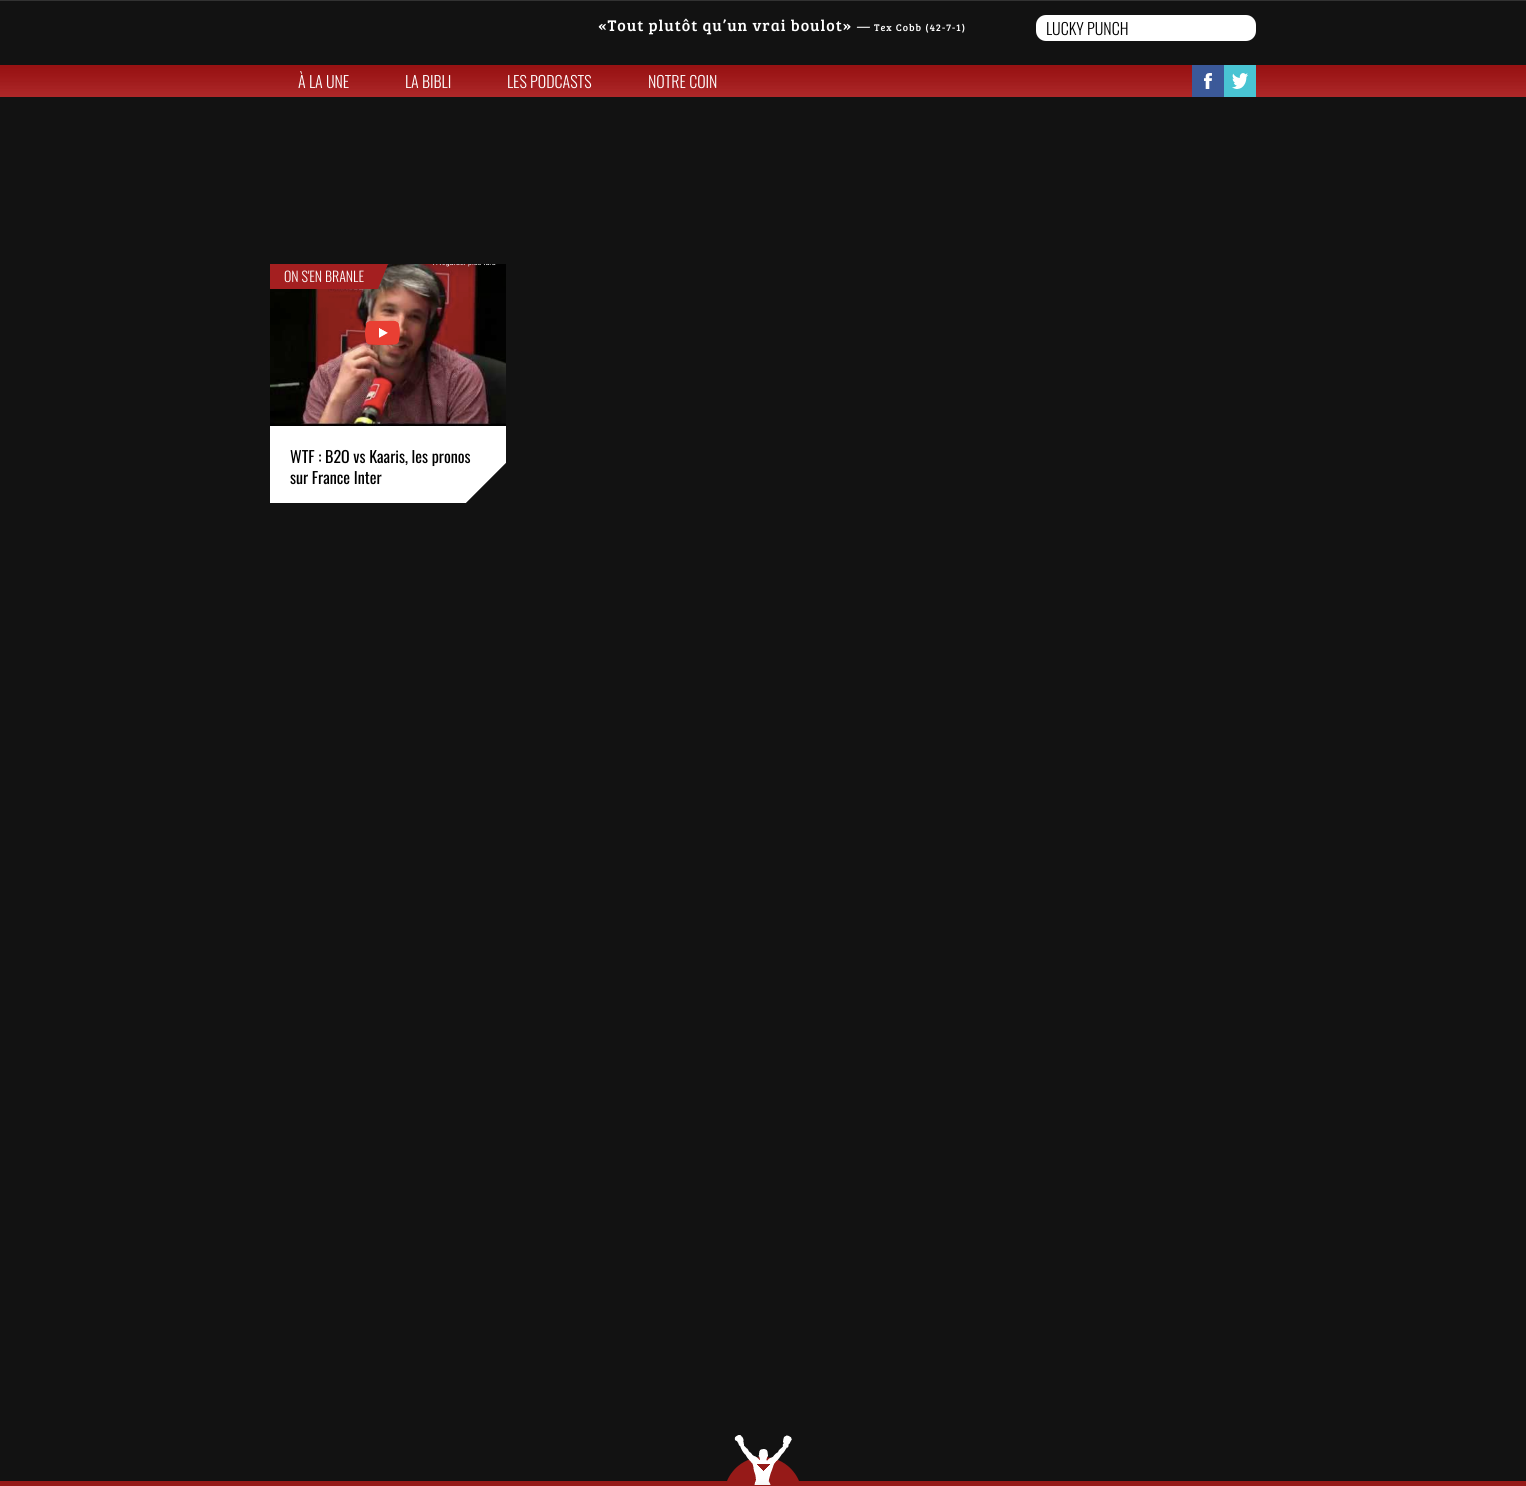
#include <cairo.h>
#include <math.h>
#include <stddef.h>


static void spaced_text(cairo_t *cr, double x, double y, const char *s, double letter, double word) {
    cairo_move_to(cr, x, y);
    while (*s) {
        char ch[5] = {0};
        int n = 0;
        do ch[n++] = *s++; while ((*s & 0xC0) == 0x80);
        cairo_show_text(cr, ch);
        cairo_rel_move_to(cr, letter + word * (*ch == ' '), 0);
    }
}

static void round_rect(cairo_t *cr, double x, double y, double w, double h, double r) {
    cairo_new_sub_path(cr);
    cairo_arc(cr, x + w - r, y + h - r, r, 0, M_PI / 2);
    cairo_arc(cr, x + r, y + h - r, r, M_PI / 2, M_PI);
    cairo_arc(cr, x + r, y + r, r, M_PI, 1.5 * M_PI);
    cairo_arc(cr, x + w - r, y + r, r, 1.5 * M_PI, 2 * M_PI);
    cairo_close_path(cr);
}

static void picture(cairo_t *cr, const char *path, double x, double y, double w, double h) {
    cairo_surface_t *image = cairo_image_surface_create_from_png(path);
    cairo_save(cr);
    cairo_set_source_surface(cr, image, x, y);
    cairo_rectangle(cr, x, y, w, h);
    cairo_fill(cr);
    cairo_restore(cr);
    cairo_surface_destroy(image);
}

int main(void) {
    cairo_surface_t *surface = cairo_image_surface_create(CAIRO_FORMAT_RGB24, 1526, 1486);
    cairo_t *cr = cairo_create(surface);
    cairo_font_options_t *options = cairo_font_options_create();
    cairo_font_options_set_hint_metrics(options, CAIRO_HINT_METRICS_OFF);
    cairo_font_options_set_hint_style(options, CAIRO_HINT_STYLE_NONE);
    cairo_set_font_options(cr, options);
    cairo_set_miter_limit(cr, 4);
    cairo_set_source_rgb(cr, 0.071, 0.071, 0.071);
    cairo_paint(cr);
    cairo_set_source_rgb(cr, 0.196, 0.196, 0.196);
    cairo_rectangle(cr, 0, 0, 1526, 1);
    cairo_fill(cr);
    cairo_select_font_face(cr, "Bree Serif", CAIRO_FONT_SLANT_NORMAL, CAIRO_FONT_WEIGHT_NORMAL);
    cairo_set_font_size(cr, 16);
    cairo_set_source_rgb(cr, 1, 1, 1);
    spaced_text(cr, 598, 31, "«Tout plutôt qu’un vrai boulot»", 1, 0);
    cairo_select_font_face(cr, "Bree Serif", CAIRO_FONT_SLANT_ITALIC, CAIRO_FONT_WEIGHT_NORMAL);
    cairo_set_font_size(cr, 13);
    spaced_text(cr, 856, 31, "—", 1, 0);
    cairo_select_font_face(cr, "Bree Serif", CAIRO_FONT_SLANT_NORMAL, CAIRO_FONT_WEIGHT_NORMAL);
    cairo_set_font_size(cr, 10);
    spaced_text(cr, 874, 31, "Tex Cobb (42-7-1)", 1, 0);
    round_rect(cr, 1036, 15, 220, 26, 10);
    cairo_fill(cr);
    cairo_select_font_face(cr, "Oswald Light", CAIRO_FONT_SLANT_NORMAL, CAIRO_FONT_WEIGHT_NORMAL);
    cairo_set_font_size(cr, 16);
    cairo_set_source_rgb(cr, 0, 0, 0);
    cairo_move_to(cr, 1046, 35);
    cairo_show_text(cr, "LUCKY PUNCH");
    picture(cr, "img1.png", 0, 65, 1526, 32);
    cairo_set_source_rgb(cr, 1, 1, 1);
    cairo_move_to(cr, 298, 88);
    cairo_show_text(cr, "À LA UNE");
    cairo_move_to(cr, 405, 88);
    cairo_show_text(cr, "LA BIBLI");
    cairo_move_to(cr, 507, 88);
    cairo_show_text(cr, "LES PODCASTS");
    cairo_move_to(cr, 648, 88);
    cairo_show_text(cr, "NOTRE COIN");
    picture(cr, "img2.png", 1192, 65, 32, 32);
    picture(cr, "img3.png", 1224, 65, 32, 32);
    picture(cr, "img4.png", 270, 264, 236, 162);
    cairo_save(cr);
    cairo_rectangle(cr, 270, 264, 236, 239);
    cairo_clip(cr);
    cairo_set_source_rgb(cr, 0.643, 0.122, 0.125);
    cairo_new_path(cr);
    cairo_move_to(cr, 270, 264);
    cairo_line_to(cr, 388, 264);
    cairo_line_to(cr, 378, 289);
    cairo_line_to(cr, 260, 289);
    cairo_close_path(cr);
    cairo_fill(cr);
    cairo_restore(cr);
    cairo_set_font_size(cr, 14);
    cairo_move_to(cr, 284, 282);
    cairo_show_text(cr, "ON S'EN BRANLE");
    cairo_rectangle(cr, 270, 426, 236, 62);
    cairo_fill(cr);
    cairo_select_font_face(cr, "Oswald", CAIRO_FONT_SLANT_NORMAL, CAIRO_FONT_WEIGHT_NORMAL);
    cairo_set_font_size(cr, 16);
    cairo_set_source_rgb(cr, 0, 0, 0);
    cairo_move_to(cr, 290, 463);
    cairo_show_text(cr, "WTF : B2O vs Kaaris, les pronos");
    cairo_move_to(cr, 290, 484);
    cairo_show_text(cr, "sur France Inter");
    cairo_set_source_rgb(cr, 1, 1, 1);
    cairo_rectangle(cr, 270, 488, 211, 15);
    cairo_fill(cr);
    picture(cr, "img5.png", 466, 463, 40, 40);
    cairo_set_source_rgb(cr, 0.588, 0.102, 0.094);
    cairo_rectangle(cr, 0, 1481, 1526, 5);
    cairo_fill(cr);
    picture(cr, "img6.png", 727, 1435, 72, 50);
    picture(cr, "img7.png", 757, 1464, 13, 7);
    cairo_surface_write_to_png(surface, "page.png");
    cairo_font_options_destroy(options);
    cairo_destroy(cr);
    cairo_surface_destroy(surface);
    return 0;
}
